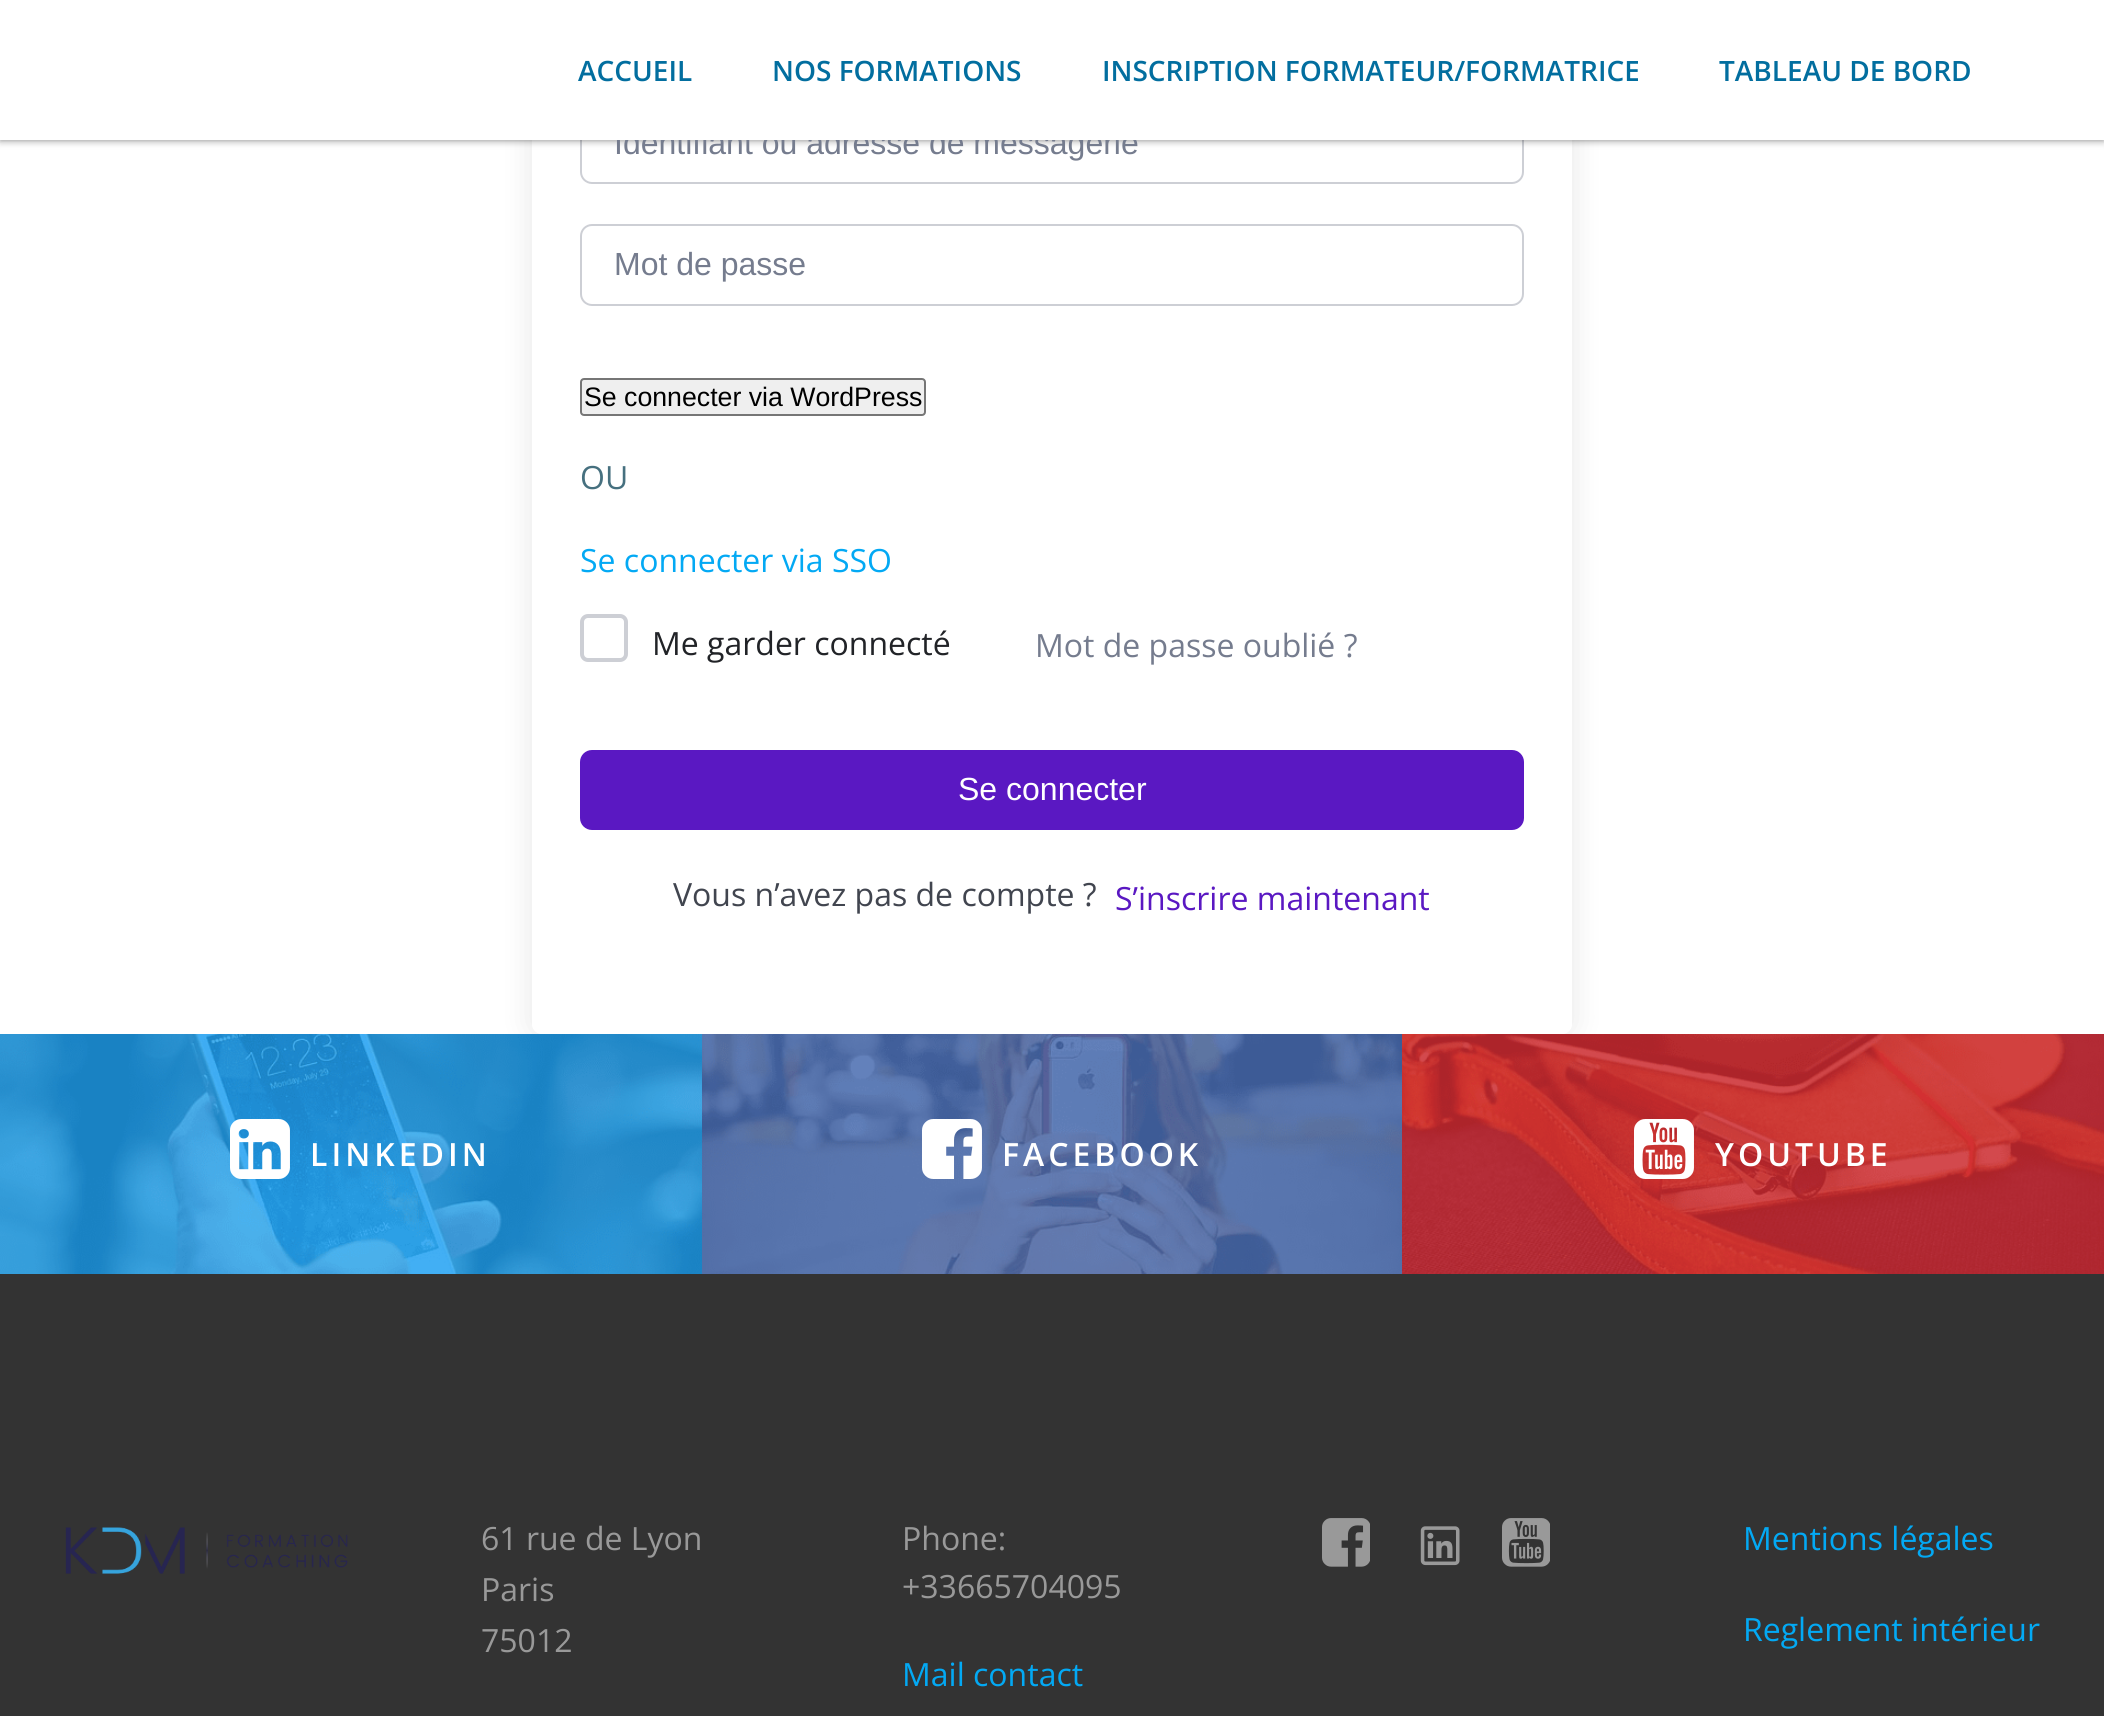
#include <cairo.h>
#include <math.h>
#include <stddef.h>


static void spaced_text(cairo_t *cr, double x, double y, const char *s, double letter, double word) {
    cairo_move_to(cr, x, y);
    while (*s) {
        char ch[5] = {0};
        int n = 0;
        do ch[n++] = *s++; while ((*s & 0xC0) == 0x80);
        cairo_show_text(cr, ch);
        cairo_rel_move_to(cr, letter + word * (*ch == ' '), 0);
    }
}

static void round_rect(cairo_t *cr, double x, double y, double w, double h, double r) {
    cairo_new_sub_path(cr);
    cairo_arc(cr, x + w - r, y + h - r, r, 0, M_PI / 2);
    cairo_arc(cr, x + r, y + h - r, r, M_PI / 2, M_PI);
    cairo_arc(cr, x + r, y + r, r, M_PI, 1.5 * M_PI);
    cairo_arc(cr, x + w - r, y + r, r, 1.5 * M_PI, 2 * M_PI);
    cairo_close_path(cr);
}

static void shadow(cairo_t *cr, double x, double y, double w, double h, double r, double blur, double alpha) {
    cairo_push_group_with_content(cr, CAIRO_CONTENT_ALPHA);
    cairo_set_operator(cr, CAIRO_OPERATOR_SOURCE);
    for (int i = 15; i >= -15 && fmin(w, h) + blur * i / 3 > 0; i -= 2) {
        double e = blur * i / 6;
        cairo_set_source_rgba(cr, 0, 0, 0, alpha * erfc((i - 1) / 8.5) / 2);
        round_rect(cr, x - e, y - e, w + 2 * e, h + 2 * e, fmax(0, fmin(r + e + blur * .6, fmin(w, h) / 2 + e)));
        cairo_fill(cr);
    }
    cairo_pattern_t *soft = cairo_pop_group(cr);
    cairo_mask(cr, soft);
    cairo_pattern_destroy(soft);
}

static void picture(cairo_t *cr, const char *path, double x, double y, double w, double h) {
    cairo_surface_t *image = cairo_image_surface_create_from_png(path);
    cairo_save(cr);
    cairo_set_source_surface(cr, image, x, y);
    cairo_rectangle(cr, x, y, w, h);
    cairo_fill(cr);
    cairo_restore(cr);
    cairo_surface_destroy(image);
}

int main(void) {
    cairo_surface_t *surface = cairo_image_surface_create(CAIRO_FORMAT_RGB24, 2104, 1716);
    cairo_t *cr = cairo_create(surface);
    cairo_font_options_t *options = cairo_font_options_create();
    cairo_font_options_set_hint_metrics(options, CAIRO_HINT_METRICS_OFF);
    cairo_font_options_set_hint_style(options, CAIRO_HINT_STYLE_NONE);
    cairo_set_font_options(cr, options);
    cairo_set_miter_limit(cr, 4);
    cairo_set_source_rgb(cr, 1, 1, 1);
    cairo_paint(cr);
    cairo_save(cr);
    cairo_set_fill_rule(cr, CAIRO_FILL_RULE_EVEN_ODD);
    cairo_new_path(cr);
    cairo_move_to(cr, 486, 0);
    cairo_line_to(cr, 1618, 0);
    cairo_line_to(cr, 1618, 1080);
    cairo_line_to(cr, 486, 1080);
    cairo_close_path(cr);
    cairo_move_to(cr, 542, -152);
    cairo_line_to(cr, 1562, -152);
    cairo_curve_to(cr, 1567.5, -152, 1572, -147.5, 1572, -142);
    cairo_line_to(cr, 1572, 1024);
    cairo_curve_to(cr, 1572, 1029.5, 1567.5, 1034, 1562, 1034);
    cairo_line_to(cr, 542, 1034);
    cairo_curve_to(cr, 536.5, 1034, 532, 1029.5, 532, 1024);
    cairo_line_to(cr, 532, -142);
    cairo_curve_to(cr, 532, -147.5, 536.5, -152, 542, -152);
    cairo_close_path(cr);
    cairo_clip(cr);
    cairo_set_source_rgb(cr, 0, 0, 0);
    shadow(cr, 532, -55, 1040, 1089, 10, 15, 0.1);
    cairo_restore(cr);
    round_rect(cr, 581, 105, 942, 78, 11);
    cairo_set_source_rgb(cr, 0.804, 0.812, 0.835);
    cairo_stroke(cr);
    cairo_set_source_rgb(cr, 0, 0, 0);
    shadow(cr, 0, 0, 2104, 140, 0, 4, 0.5);
    cairo_select_font_face(cr, "Liberation Sans", CAIRO_FONT_SLANT_NORMAL, CAIRO_FONT_WEIGHT_NORMAL);
    cairo_set_font_size(cr, 32);
    cairo_set_source_rgb(cr, 0.459, 0.486, 0.557);
    cairo_move_to(cr, 614, 154);
    cairo_show_text(cr, "Identifiant ou adresse de messagerie");
    cairo_set_source_rgb(cr, 1, 1, 1);
    cairo_rectangle(cr, 0, 0, 2104, 140);
    cairo_fill(cr);
    cairo_select_font_face(cr, "Open Sans SemiBold", CAIRO_FONT_SLANT_NORMAL, CAIRO_FONT_WEIGHT_NORMAL);
    cairo_set_font_size(cr, 28);
    cairo_set_source_rgb(cr, 0.008, 0.431, 0.624);
    cairo_move_to(cr, 578, 81);
    cairo_show_text(cr, "ACCUEIL");
    cairo_move_to(cr, 772, 81);
    cairo_show_text(cr, "NOS FORMATIONS");
    cairo_move_to(cr, 1102, 81);
    cairo_show_text(cr, "INSCRIPTION FORMATEUR/FORMATRICE");
    cairo_move_to(cr, 1719, 81);
    cairo_show_text(cr, "TABLEAU DE BORD");
    round_rect(cr, 581, 225, 942, 80, 11);
    cairo_set_source_rgb(cr, 0.804, 0.812, 0.835);
    cairo_stroke(cr);
    cairo_select_font_face(cr, "Liberation Sans", CAIRO_FONT_SLANT_NORMAL, CAIRO_FONT_WEIGHT_NORMAL);
    cairo_set_font_size(cr, 32);
    cairo_set_source_rgb(cr, 0.459, 0.486, 0.557);
    cairo_move_to(cr, 614, 275);
    cairo_show_text(cr, "Mot de passe");
    cairo_set_source_rgb(cr, 0.937, 0.937, 0.937);
    round_rect(cr, 581, 379, 344, 36, 3);
    cairo_fill_preserve(cr);
    cairo_set_source_rgb(cr, 0.463, 0.463, 0.463);
    cairo_stroke(cr);
    cairo_set_font_size(cr, 26.7);
    cairo_set_source_rgb(cr, 0, 0, 0);
    cairo_move_to(cr, 584, 406);
    cairo_show_text(cr, "Se connecter via WordPress");
    cairo_select_font_face(cr, "Open Sans", CAIRO_FONT_SLANT_NORMAL, CAIRO_FONT_WEIGHT_NORMAL);
    cairo_set_font_size(cr, 32);
    cairo_set_source_rgb(cr, 0.275, 0.439, 0.498);
    cairo_move_to(cr, 580, 489);
    cairo_show_text(cr, "OU");
    cairo_set_source_rgb(cr, 0.012, 0.663, 0.957);
    cairo_move_to(cr, 580, 572);
    cairo_show_text(cr, "Se connecter via SSO");
    round_rect(cr, 582, 616, 44, 44, 6);
    cairo_set_source_rgb(cr, 0.804, 0.812, 0.835);
    cairo_set_line_width(cr, 4);
    cairo_stroke(cr);
    cairo_set_source_rgb(cr, 0.129, 0.137, 0.153);
    cairo_move_to(cr, 652, 655);
    cairo_show_text(cr, "Me garder connecté");
    cairo_set_source_rgb(cr, 0.459, 0.486, 0.557);
    cairo_move_to(cr, 1035, 657);
    cairo_show_text(cr, "Mot de passe oublié ?");
    cairo_set_source_rgb(cr, 0.353, 0.094, 0.761);
    round_rect(cr, 581, 751, 942, 78, 11);
    cairo_fill_preserve(cr);
    cairo_set_line_width(cr, 2);
    cairo_stroke(cr);
    cairo_select_font_face(cr, "Liberation Sans", CAIRO_FONT_SLANT_NORMAL, CAIRO_FONT_WEIGHT_NORMAL);
    cairo_set_source_rgb(cr, 1, 1, 1);
    cairo_move_to(cr, 958, 800);
    cairo_show_text(cr, "Se connecter");
    cairo_select_font_face(cr, "Open Sans", CAIRO_FONT_SLANT_NORMAL, CAIRO_FONT_WEIGHT_NORMAL);
    cairo_set_source_rgb(cr, 0.255, 0.271, 0.31);
    cairo_move_to(cr, 673, 906);
    cairo_show_text(cr, "Vous n’avez pas de compte ?");
    cairo_set_source_rgb(cr, 0.353, 0.094, 0.761);
    cairo_move_to(cr, 1115, 910);
    cairo_show_text(cr, "S’inscrire maintenant");
    picture(cr, "img1.png", 0, 1034, 702, 240);
    picture(cr, "img2.png", 230, 1119, 60, 60);
    cairo_select_font_face(cr, "Open Sans SemiBold", CAIRO_FONT_SLANT_NORMAL, CAIRO_FONT_WEIGHT_NORMAL);
    cairo_set_source_rgb(cr, 1, 1, 1);
    spaced_text(cr, 310, 1166, "LINKEDIN", 4, 0);
    picture(cr, "img3.png", 702, 1034, 700, 240);
    picture(cr, "img4.png", 922, 1119, 60, 60);
    spaced_text(cr, 1002, 1166, "FACEBOOK", 4, 0);
    picture(cr, "img5.png", 1402, 1034, 702, 240);
    picture(cr, "img6.png", 1634, 1119, 60, 60);
    spaced_text(cr, 1715, 1166, "YOUTUBE", 4, 0);
    cairo_set_source_rgb(cr, 0.2, 0.2, 0.2);
    cairo_rectangle(cr, 0, 1274, 2104, 442);
    cairo_fill(cr);
    picture(cr, "img7.png", 65, 1527, 283, 47);
    cairo_select_font_face(cr, "Open Sans", CAIRO_FONT_SLANT_NORMAL, CAIRO_FONT_WEIGHT_NORMAL);
    cairo_set_source_rgb(cr, 0.6, 0.6, 0.6);
    cairo_move_to(cr, 481, 1550);
    cairo_show_text(cr, "61 rue de Lyon");
    cairo_move_to(cr, 481, 1601);
    cairo_show_text(cr, "Paris");
    cairo_move_to(cr, 481, 1652);
    cairo_show_text(cr, "75012");
    cairo_move_to(cr, 902, 1550);
    cairo_show_text(cr, "Phone:");
    cairo_move_to(cr, 902, 1598);
    cairo_show_text(cr, "+33665704095");
    cairo_set_source_rgb(cr, 0.012, 0.663, 0.957);
    cairo_move_to(cr, 902, 1686);
    cairo_show_text(cr, "Mail contact");
    picture(cr, "img8.png", 1322, 1518, 48, 49);
    picture(cr, "img9.png", 1420, 1526, 40, 40);
    picture(cr, "img10.png", 1502, 1518, 48, 49);
    cairo_move_to(cr, 1743, 1550);
    cairo_show_text(cr, "Mentions légales");
    cairo_move_to(cr, 1743, 1641);
    cairo_show_text(cr, "Reglement intérieur");
    cairo_surface_write_to_png(surface, "page.png");
    cairo_font_options_destroy(options);
    cairo_destroy(cr);
    cairo_surface_destroy(surface);
    return 0;
}
